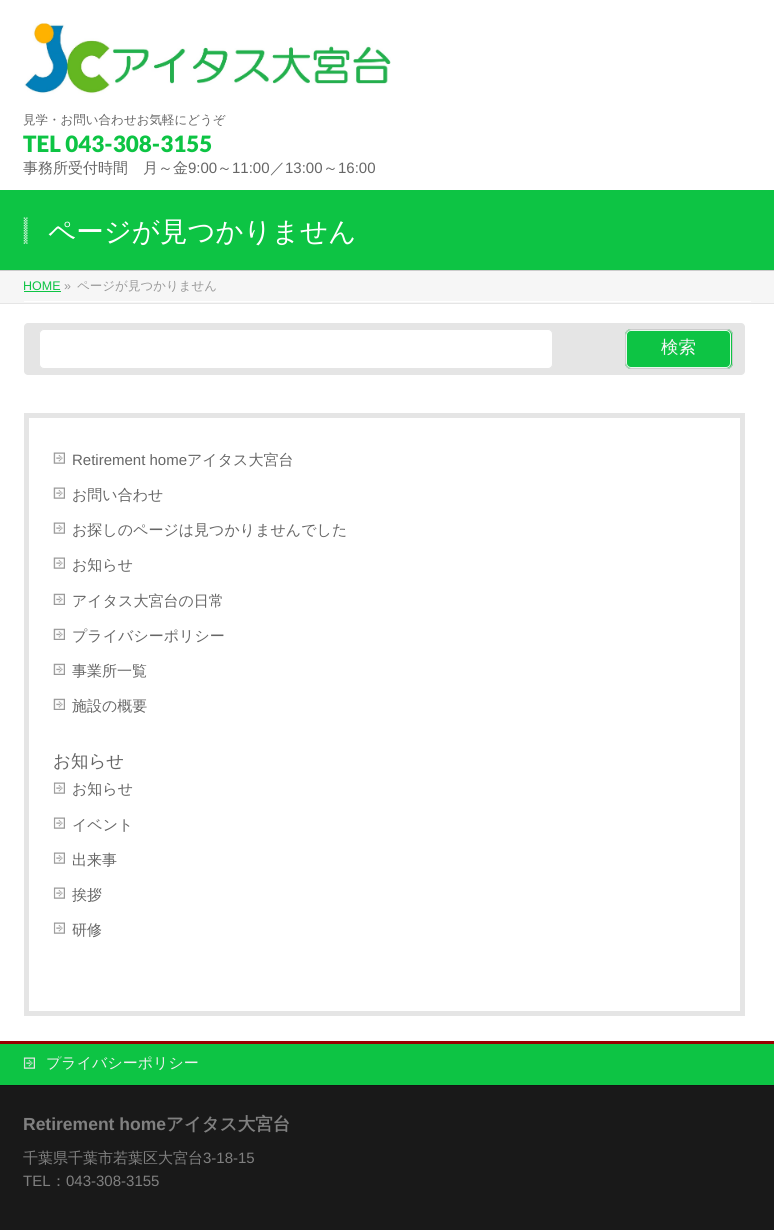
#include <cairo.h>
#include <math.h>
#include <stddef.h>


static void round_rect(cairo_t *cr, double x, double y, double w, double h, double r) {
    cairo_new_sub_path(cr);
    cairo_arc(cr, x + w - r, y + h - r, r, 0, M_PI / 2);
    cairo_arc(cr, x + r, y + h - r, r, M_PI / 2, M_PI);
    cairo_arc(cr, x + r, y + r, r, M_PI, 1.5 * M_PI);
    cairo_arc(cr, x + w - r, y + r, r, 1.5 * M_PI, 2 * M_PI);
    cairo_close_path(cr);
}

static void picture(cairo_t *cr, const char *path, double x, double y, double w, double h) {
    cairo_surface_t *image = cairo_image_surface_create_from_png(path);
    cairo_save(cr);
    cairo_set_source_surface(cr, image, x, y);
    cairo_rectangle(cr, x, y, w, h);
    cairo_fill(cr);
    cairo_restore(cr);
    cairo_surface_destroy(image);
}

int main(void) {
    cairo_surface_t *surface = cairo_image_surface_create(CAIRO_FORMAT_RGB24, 774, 1230);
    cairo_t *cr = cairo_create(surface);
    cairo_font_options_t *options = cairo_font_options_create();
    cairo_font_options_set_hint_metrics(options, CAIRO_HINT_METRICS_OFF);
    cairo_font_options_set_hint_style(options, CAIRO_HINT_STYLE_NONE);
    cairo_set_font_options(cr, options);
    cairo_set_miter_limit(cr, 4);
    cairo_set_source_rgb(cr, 1, 1, 1);
    cairo_paint(cr);
    picture(cr, "img1.png", 24, 23, 367, 71);
    cairo_select_font_face(cr, "WenQuanYi Zen Hei Medium", CAIRO_FONT_SLANT_NORMAL, CAIRO_FONT_WEIGHT_NORMAL);
    cairo_set_font_size(cr, 12.5);
    cairo_set_source_rgb(cr, 0.4, 0.4, 0.4);
    cairo_move_to(cr, 23, 124);
    cairo_show_text(cr, "見学・お問い合わせお気軽にどうぞ");
    cairo_select_font_face(cr, "Lato Black", CAIRO_FONT_SLANT_NORMAL, CAIRO_FONT_WEIGHT_NORMAL);
    cairo_set_font_size(cr, 22.5);
    cairo_set_source_rgb(cr, 0.051, 0.769, 0.267);
    cairo_move_to(cr, 23, 152);
    cairo_show_text(cr, "TEL 043-308-3155");
    cairo_select_font_face(cr, "WenQuanYi Zen Hei Medium", CAIRO_FONT_SLANT_NORMAL, CAIRO_FONT_WEIGHT_NORMAL);
    cairo_set_font_size(cr, 15);
    cairo_set_source_rgb(cr, 0.4, 0.4, 0.4);
    cairo_move_to(cr, 23, 173);
    cairo_show_text(cr, "事務所受付時間　月～金");
    cairo_select_font_face(cr, "Liberation Sans", CAIRO_FONT_SLANT_NORMAL, CAIRO_FONT_WEIGHT_NORMAL);
    cairo_move_to(cr, 188, 173);
    cairo_show_text(cr, "9:00");
    cairo_select_font_face(cr, "WenQuanYi Zen Hei Medium", CAIRO_FONT_SLANT_NORMAL, CAIRO_FONT_WEIGHT_NORMAL);
    cairo_move_to(cr, 217, 173);
    cairo_show_text(cr, "～");
    cairo_select_font_face(cr, "Liberation Sans", CAIRO_FONT_SLANT_NORMAL, CAIRO_FONT_WEIGHT_NORMAL);
    cairo_move_to(cr, 232, 173);
    cairo_show_text(cr, "11:00");
    cairo_select_font_face(cr, "WenQuanYi Zen Hei Medium", CAIRO_FONT_SLANT_NORMAL, CAIRO_FONT_WEIGHT_NORMAL);
    cairo_move_to(cr, 270, 173);
    cairo_show_text(cr, "／");
    cairo_select_font_face(cr, "Liberation Sans", CAIRO_FONT_SLANT_NORMAL, CAIRO_FONT_WEIGHT_NORMAL);
    cairo_move_to(cr, 285, 173);
    cairo_show_text(cr, "13:00");
    cairo_select_font_face(cr, "WenQuanYi Zen Hei Medium", CAIRO_FONT_SLANT_NORMAL, CAIRO_FONT_WEIGHT_NORMAL);
    cairo_move_to(cr, 323, 173);
    cairo_show_text(cr, "～");
    cairo_select_font_face(cr, "Liberation Sans", CAIRO_FONT_SLANT_NORMAL, CAIRO_FONT_WEIGHT_NORMAL);
    cairo_move_to(cr, 338, 173);
    cairo_show_text(cr, "16:00");
    cairo_set_source_rgb(cr, 0.051, 0.769, 0.267);
    cairo_rectangle(cr, 0, 190, 774, 80);
    cairo_fill(cr);
    cairo_set_source_rgb(cr, 0.8, 0.8, 0.8);
    cairo_rectangle(cr, 0, 270, 774, 1);
    cairo_fill(cr);
    picture(cr, "img2.png", 23, 217, 5, 27);
    cairo_select_font_face(cr, "WenQuanYi Zen Hei Medium", CAIRO_FONT_SLANT_NORMAL, CAIRO_FONT_WEIGHT_NORMAL);
    cairo_set_font_size(cr, 27.5);
    cairo_set_source_rgb(cr, 1, 1, 1);
    cairo_move_to(cr, 48, 241);
    cairo_show_text(cr, "ページが見つかりません");
    cairo_set_source_rgb(cr, 0.961, 0.961, 0.961);
    cairo_rectangle(cr, 0, 271, 774, 32);
    cairo_fill(cr);
    cairo_set_source_rgb(cr, 0.898, 0.898, 0.898);
    cairo_rectangle(cr, 0, 303, 774, 1);
    cairo_fill(cr);
    cairo_set_source_rgb(cr, 1, 1, 1);
    cairo_rectangle(cr, 24, 301, 727, 1);
    cairo_fill(cr);
    cairo_select_font_face(cr, "Liberation Sans", CAIRO_FONT_SLANT_NORMAL, CAIRO_FONT_WEIGHT_NORMAL);
    cairo_set_font_size(cr, 12.5);
    cairo_set_source_rgb(cr, 0.051, 0.769, 0.267);
    cairo_move_to(cr, 23, 290);
    cairo_show_text(cr, "HOME");
    cairo_rectangle(cr, 24, 291, 37, 1);
    cairo_fill(cr);
    cairo_set_source_rgb(cr, 0.6, 0.6, 0.6);
    cairo_move_to(cr, 64, 290);
    cairo_show_text(cr, "»");
    cairo_select_font_face(cr, "WenQuanYi Zen Hei Medium", CAIRO_FONT_SLANT_NORMAL, CAIRO_FONT_WEIGHT_NORMAL);
    cairo_move_to(cr, 77, 290);
    cairo_show_text(cr, "ページが見つかりません");
    cairo_set_source_rgb(cr, 0.898, 0.898, 0.898);
    round_rect(cr, 24, 323, 721, 52, 4);
    cairo_fill(cr);
    cairo_set_source_rgb(cr, 1, 1, 1);
    round_rect(cr, 39.5, 329.5, 513, 39, 4.5);
    cairo_fill_preserve(cr);
    cairo_set_source_rgb(cr, 0.898, 0.898, 0.898);
    cairo_set_line_width(cr, 1);
    cairo_stroke(cr);
    cairo_set_source_rgb(cr, 0.051, 0.769, 0.267);
    round_rect(cr, 625, 329, 108, 40, 6);
    cairo_fill(cr);
    round_rect(cr, 626.5, 330.5, 104, 37, 4.5);
    cairo_set_source_rgb(cr, 0.906, 0.976, 0.925);
    cairo_stroke(cr);
    round_rect(cr, 625.5, 329.5, 107, 39, 5.5);
    cairo_set_source_rgb(cr, 0.8, 0.8, 0.8);
    cairo_stroke(cr);
    cairo_set_font_size(cr, 17.5);
    cairo_set_source_rgb(cr, 0.961, 0.961, 0.961);
    cairo_move_to(cr, 661, 353);
    cairo_show_text(cr, "検索");
    cairo_rectangle(cr, 26.5, 415.5, 716, 598);
    cairo_set_source_rgb(cr, 0.898, 0.898, 0.898);
    cairo_set_line_width(cr, 5);
    cairo_stroke(cr);
    picture(cr, "img3.png", 53, 452, 12, 12);
    cairo_select_font_face(cr, "Liberation Sans", CAIRO_FONT_SLANT_NORMAL, CAIRO_FONT_WEIGHT_NORMAL);
    cairo_set_font_size(cr, 15);
    cairo_set_source_rgb(cr, 0.4, 0.4, 0.4);
    cairo_move_to(cr, 72, 465);
    cairo_show_text(cr, "Retirement home");
    cairo_select_font_face(cr, "WenQuanYi Zen Hei Medium", CAIRO_FONT_SLANT_NORMAL, CAIRO_FONT_WEIGHT_NORMAL);
    cairo_move_to(cr, 187, 465);
    cairo_show_text(cr, "アイタス大宮台");
    picture(cr, "img3.png", 53, 487, 12, 12);
    cairo_move_to(cr, 72, 500);
    cairo_show_text(cr, "お問い合わせ");
    picture(cr, "img3.png", 53, 522, 12, 12);
    cairo_move_to(cr, 72, 535);
    cairo_show_text(cr, "お探しのページは見つかりませんでした");
    picture(cr, "img3.png", 53, 557, 12, 12);
    cairo_move_to(cr, 72, 570);
    cairo_show_text(cr, "お知らせ");
    picture(cr, "img4.png", 53, 593, 12, 12);
    cairo_move_to(cr, 72, 606);
    cairo_show_text(cr, "アイタス大宮台の日常");
    picture(cr, "img4.png", 53, 628, 12, 12);
    cairo_move_to(cr, 72, 641);
    cairo_show_text(cr, "プライバシーポリシー");
    picture(cr, "img4.png", 53, 663, 12, 12);
    cairo_move_to(cr, 72, 676);
    cairo_show_text(cr, "事業所一覧");
    picture(cr, "img4.png", 53, 698, 12, 12);
    cairo_move_to(cr, 72, 711);
    cairo_show_text(cr, "施設の概要");
    cairo_set_font_size(cr, 17.5);
    cairo_move_to(cr, 53, 767);
    cairo_show_text(cr, "お知らせ");
    picture(cr, "img5.png", 53, 782, 12, 12);
    cairo_set_font_size(cr, 15);
    cairo_move_to(cr, 72, 794);
    cairo_show_text(cr, "お知らせ");
    picture(cr, "img5.png", 53, 817, 12, 12);
    cairo_move_to(cr, 72, 830);
    cairo_show_text(cr, "イベント");
    picture(cr, "img5.png", 53, 852, 12, 12);
    cairo_move_to(cr, 72, 865);
    cairo_show_text(cr, "出来事");
    picture(cr, "img5.png", 53, 887, 12, 12);
    cairo_move_to(cr, 72, 900);
    cairo_show_text(cr, "挨拶");
    picture(cr, "img5.png", 53, 922, 12, 12);
    cairo_move_to(cr, 72, 935);
    cairo_show_text(cr, "研修");
    cairo_set_source_rgb(cr, 0.051, 0.769, 0.267);
    cairo_rectangle(cr, 0, 1044, 774, 41);
    cairo_fill(cr);
    cairo_set_source_rgb(cr, 0.6, 0, 0);
    cairo_rectangle(cr, 0, 1041, 774, 3);
    cairo_fill(cr);
    picture(cr, "img6.png", 23, 1057, 12, 12);
    cairo_save(cr);
    cairo_rectangle(cr, 24, 1056, 727, 17);
    cairo_clip(cr);
    cairo_set_source_rgb(cr, 0.937, 0.937, 0.937);
    cairo_move_to(cr, 46, 1068);
    cairo_show_text(cr, "プライバシーポリシー");
    cairo_restore(cr);
    cairo_set_source_rgb(cr, 0.098, 0.098, 0.098);
    cairo_rectangle(cr, 0, 1086, 774, 144);
    cairo_fill(cr);
    cairo_set_source_rgb(cr, 0.082, 0.082, 0.082);
    cairo_rectangle(cr, 0, 1085, 774, 1);
    cairo_fill(cr);
    cairo_select_font_face(cr, "Liberation Sans", CAIRO_FONT_SLANT_NORMAL, CAIRO_FONT_WEIGHT_BOLD);
    cairo_set_font_size(cr, 17.5);
    cairo_set_source_rgb(cr, 0.502, 0.502, 0.502);
    cairo_move_to(cr, 23, 1130);
    cairo_show_text(cr, "Retirement home");
    cairo_select_font_face(cr, "WenQuanYi Zen Hei", CAIRO_FONT_SLANT_NORMAL, CAIRO_FONT_WEIGHT_BOLD);
    cairo_move_to(cr, 166, 1130);
    cairo_show_text(cr, "アイタス大宮台");
    cairo_select_font_face(cr, "WenQuanYi Zen Hei Medium", CAIRO_FONT_SLANT_NORMAL, CAIRO_FONT_WEIGHT_NORMAL);
    cairo_set_font_size(cr, 15);
    cairo_move_to(cr, 23, 1163);
    cairo_show_text(cr, "千葉県千葉市若葉区大宮台");
    cairo_select_font_face(cr, "Liberation Sans", CAIRO_FONT_SLANT_NORMAL, CAIRO_FONT_WEIGHT_NORMAL);
    cairo_move_to(cr, 203, 1163);
    cairo_show_text(cr, "3-18-15");
    cairo_move_to(cr, 23, 1186);
    cairo_show_text(cr, "TEL");
    cairo_select_font_face(cr, "WenQuanYi Zen Hei Medium", CAIRO_FONT_SLANT_NORMAL, CAIRO_FONT_WEIGHT_NORMAL);
    cairo_move_to(cr, 51, 1186);
    cairo_show_text(cr, "：");
    cairo_select_font_face(cr, "Liberation Sans", CAIRO_FONT_SLANT_NORMAL, CAIRO_FONT_WEIGHT_NORMAL);
    cairo_move_to(cr, 66, 1186);
    cairo_show_text(cr, "043-308-3155");
    cairo_surface_write_to_png(surface, "page.png");
    cairo_font_options_destroy(options);
    cairo_destroy(cr);
    cairo_surface_destroy(surface);
    return 0;
}
